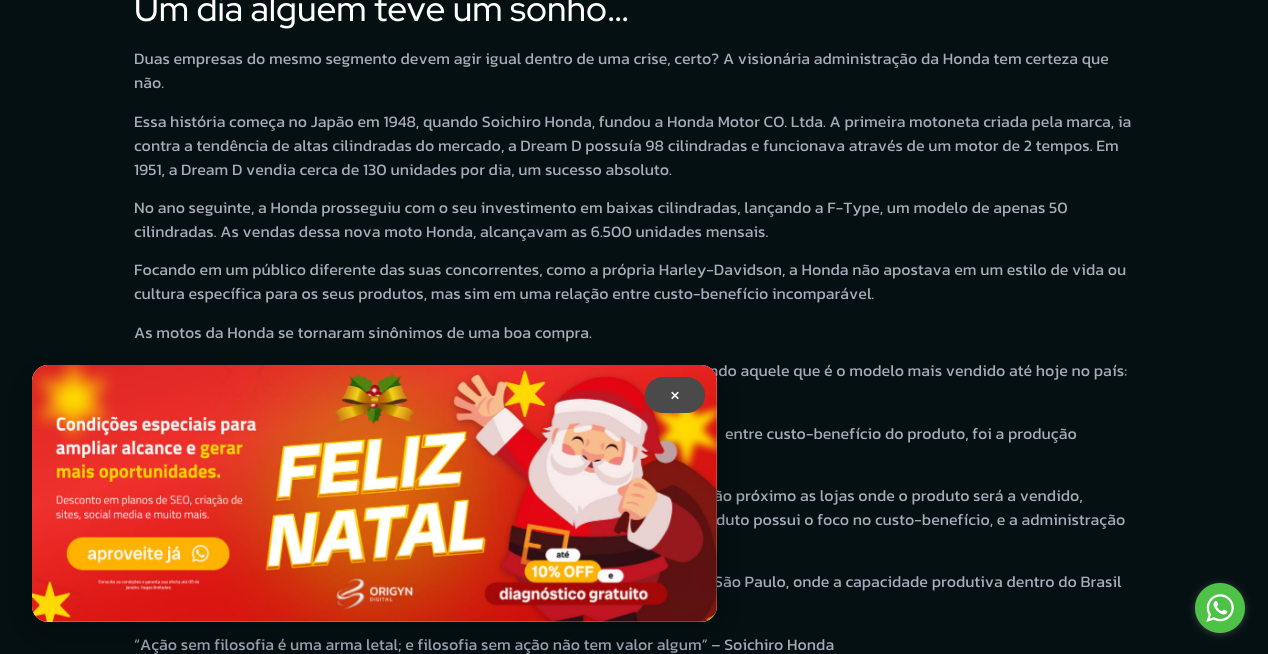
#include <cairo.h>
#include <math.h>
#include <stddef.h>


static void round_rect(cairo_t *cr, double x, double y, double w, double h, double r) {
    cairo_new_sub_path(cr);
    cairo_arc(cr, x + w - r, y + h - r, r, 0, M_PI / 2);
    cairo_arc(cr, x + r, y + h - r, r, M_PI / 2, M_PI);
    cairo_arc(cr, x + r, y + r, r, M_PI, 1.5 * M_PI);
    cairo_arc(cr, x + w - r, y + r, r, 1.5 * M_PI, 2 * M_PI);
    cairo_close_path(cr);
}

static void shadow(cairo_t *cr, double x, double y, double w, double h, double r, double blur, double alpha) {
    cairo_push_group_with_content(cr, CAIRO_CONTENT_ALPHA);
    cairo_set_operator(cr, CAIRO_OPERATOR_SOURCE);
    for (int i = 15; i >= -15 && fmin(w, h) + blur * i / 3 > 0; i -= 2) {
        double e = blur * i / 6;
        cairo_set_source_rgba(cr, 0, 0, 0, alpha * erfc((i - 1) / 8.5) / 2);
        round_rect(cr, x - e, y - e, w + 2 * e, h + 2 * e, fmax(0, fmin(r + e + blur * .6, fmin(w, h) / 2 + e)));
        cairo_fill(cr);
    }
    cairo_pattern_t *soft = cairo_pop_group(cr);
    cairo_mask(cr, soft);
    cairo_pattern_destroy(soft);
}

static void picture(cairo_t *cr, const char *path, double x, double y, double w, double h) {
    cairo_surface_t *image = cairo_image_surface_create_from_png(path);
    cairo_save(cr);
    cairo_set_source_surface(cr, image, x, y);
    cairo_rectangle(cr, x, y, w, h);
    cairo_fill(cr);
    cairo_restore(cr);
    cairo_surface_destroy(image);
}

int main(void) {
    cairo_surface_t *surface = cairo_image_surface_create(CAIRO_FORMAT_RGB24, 1268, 654);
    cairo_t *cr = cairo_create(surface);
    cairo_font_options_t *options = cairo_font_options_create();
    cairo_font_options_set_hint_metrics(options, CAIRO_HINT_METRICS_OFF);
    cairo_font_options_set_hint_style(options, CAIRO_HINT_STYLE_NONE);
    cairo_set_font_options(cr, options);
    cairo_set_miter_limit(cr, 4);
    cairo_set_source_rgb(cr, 0.016, 0.063, 0.071);
    cairo_paint(cr);
    cairo_select_font_face(cr, "Red Hat Display Medium", CAIRO_FONT_SLANT_NORMAL, CAIRO_FONT_WEIGHT_NORMAL);
    cairo_set_font_size(cr, 35);
    cairo_set_source_rgb(cr, 1, 1, 1);
    cairo_move_to(cr, 134, 21);
    cairo_show_text(cr, "Um dia alguém teve um sonho…");
    cairo_select_font_face(cr, "Kanit", CAIRO_FONT_SLANT_NORMAL, CAIRO_FONT_WEIGHT_NORMAL);
    cairo_set_font_size(cr, 16);
    cairo_set_source_rgb(cr, 0.663, 0.667, 0.729);
    cairo_move_to(cr, 134, 64);
    cairo_show_text(cr, "Duas empresas do mesmo segmento devem agir igual dentro de uma crise, certo? A visionária administração da Honda tem certeza que");
    cairo_move_to(cr, 134, 88);
    cairo_show_text(cr, "não.");
    cairo_move_to(cr, 134, 127);
    cairo_show_text(cr, "Essa história começa no Japão em 1948, quando Soichiro Honda, fundou a Honda Motor CO. Ltda. A primeira motoneta criada pela marca, ia");
    cairo_move_to(cr, 134, 151);
    cairo_show_text(cr, "contra a tendência de altas cilindradas do mercado, a Dream D possuía 98 cilindradas e funcionava através de um motor de 2 tempos. Em");
    cairo_move_to(cr, 134, 175);
    cairo_show_text(cr, "1951, a Dream D vendia cerca de 130 unidades por dia, um sucesso absoluto.");
    cairo_move_to(cr, 134, 213);
    cairo_show_text(cr, "No ano seguinte, a Honda prosseguiu com o seu investimento em baixas cilindradas, lançando a F-Type, um modelo de apenas 50");
    cairo_move_to(cr, 134, 237);
    cairo_show_text(cr, "cilindradas. As vendas dessa nova moto Honda, alcançavam as 6.500 unidades mensais.");
    cairo_move_to(cr, 134, 275);
    cairo_show_text(cr, "Focando em um público diferente das suas concorrentes, como a própria Harley-Davidson, a Honda não apostava em um estilo de vida ou");
    cairo_move_to(cr, 134, 299);
    cairo_show_text(cr, "cultura específica para os seus produtos, mas sim em uma relação entre custo-benefício incomparável.");
    cairo_move_to(cr, 134, 338);
    cairo_show_text(cr, "As motos da Honda se tornaram sinônimos de uma boa compra.");
    cairo_move_to(cr, 709, 376);
    cairo_show_text(cr, "ndo aquele que é o modelo mais vendido até hoje no país:");
    cairo_move_to(cr, 725, 439);
    cairo_show_text(cr, "entre custo-benefício do produto, foi a produção");
    cairo_move_to(cr, 714, 501);
    cairo_show_text(cr, "ão próximo as lojas onde o produto será a vendido,");
    cairo_move_to(cr, 716, 525);
    cairo_show_text(cr, "duto possui o foco no custo-benefício, e a administração");
    cairo_move_to(cr, 714, 587);
    cairo_show_text(cr, "São Paulo, onde a capacidade produtiva dentro do Brasil");
    cairo_move_to(cr, 134, 650);
    cairo_show_text(cr, "“Ação sem filosofia é uma arma letal; e filosofia sem ação não tem valor algum” – Soichiro Honda");
    cairo_set_source_rgb(cr, 0, 0, 0);
    shadow(cr, 32, 375, 685, 257, 16, 20, 0.3);
    cairo_set_source_rgb(cr, 1, 1, 1);
    round_rect(cr, 32, 365, 685, 257, 16);
    cairo_fill(cr);
    picture(cr, "img1.png", 32, 365, 685, 257);
    cairo_set_source_rgb(cr, 0.29, 0.29, 0.29);
    round_rect(cr, 645, 377, 60, 36, 18);
    cairo_fill(cr);
    cairo_select_font_face(cr, "Inter Tight Medium", CAIRO_FONT_SLANT_NORMAL, CAIRO_FONT_WEIGHT_NORMAL);
    cairo_set_source_rgb(cr, 1, 1, 1);
    cairo_move_to(cr, 670, 400);
    cairo_show_text(cr, "×");
    cairo_set_source_rgb(cr, 0.533, 0.533, 0.533);
    shadow(cr, 1195, 584, 50, 50, 25, 3.5, 0.4);
    cairo_set_source_rgb(cr, 0.302, 0.761, 0.278);
    cairo_arc(cr, 1220, 608, 25, 0, 2 * M_PI);
    cairo_fill(cr);
    picture(cr, "img2.png", 1206, 594, 28, 28);
    cairo_surface_write_to_png(surface, "page.png");
    cairo_font_options_destroy(options);
    cairo_destroy(cr);
    cairo_surface_destroy(surface);
    return 0;
}
